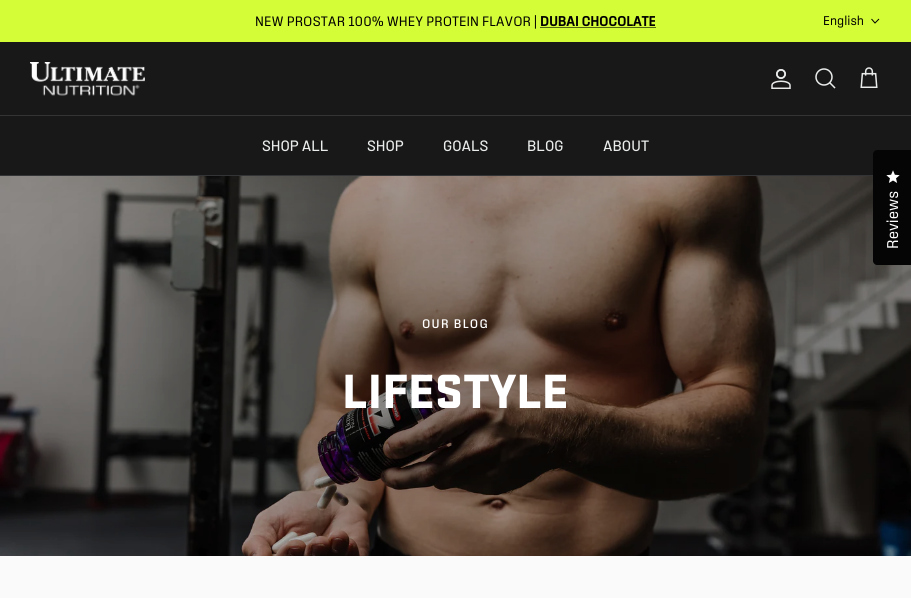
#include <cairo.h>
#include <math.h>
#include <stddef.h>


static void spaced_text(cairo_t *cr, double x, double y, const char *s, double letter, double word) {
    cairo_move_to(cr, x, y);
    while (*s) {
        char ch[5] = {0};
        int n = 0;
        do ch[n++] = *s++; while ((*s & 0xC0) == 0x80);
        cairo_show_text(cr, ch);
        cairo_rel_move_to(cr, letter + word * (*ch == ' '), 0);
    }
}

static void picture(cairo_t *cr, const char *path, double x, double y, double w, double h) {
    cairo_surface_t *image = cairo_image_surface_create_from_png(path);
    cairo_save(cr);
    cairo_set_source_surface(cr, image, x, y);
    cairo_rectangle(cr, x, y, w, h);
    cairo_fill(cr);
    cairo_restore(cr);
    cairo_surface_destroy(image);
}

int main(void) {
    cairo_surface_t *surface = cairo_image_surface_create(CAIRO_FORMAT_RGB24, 911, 598);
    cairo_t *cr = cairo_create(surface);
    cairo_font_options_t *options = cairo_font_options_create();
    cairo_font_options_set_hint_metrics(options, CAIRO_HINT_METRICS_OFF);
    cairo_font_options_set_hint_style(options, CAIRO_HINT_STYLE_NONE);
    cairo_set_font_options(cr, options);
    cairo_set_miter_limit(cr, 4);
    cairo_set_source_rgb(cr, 0.98, 0.98, 0.98);
    cairo_paint(cr);
    cairo_set_source_rgb(cr, 0.835, 0.992, 0.216);
    cairo_rectangle(cr, 0, 0, 911, 42);
    cairo_fill(cr);
    cairo_select_font_face(cr, "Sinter", CAIRO_FONT_SLANT_NORMAL, CAIRO_FONT_WEIGHT_NORMAL);
    cairo_set_font_size(cr, 14);
    cairo_set_source_rgb(cr, 0, 0, 0);
    cairo_move_to(cr, 255, 26);
    cairo_show_text(cr, "NEW PROSTAR 100% WHEY PROTEIN FLAVOR |");
    cairo_select_font_face(cr, "Sinter", CAIRO_FONT_SLANT_NORMAL, CAIRO_FONT_WEIGHT_BOLD);
    cairo_move_to(cr, 540, 26);
    cairo_show_text(cr, "DUBAI CHOCOLATE");
    cairo_set_source_rgb(cr, 0.333, 0.396, 0.086);
    cairo_rectangle(cr, 540, 27, 116, 1);
    cairo_fill(cr);
    cairo_select_font_face(cr, "Sinter", CAIRO_FONT_SLANT_NORMAL, CAIRO_FONT_WEIGHT_NORMAL);
    cairo_set_font_size(cr, 13);
    cairo_set_source_rgb(cr, 0, 0, 0);
    cairo_move_to(cr, 823, 25);
    cairo_show_text(cr, "English");
    cairo_new_path(cr);
    cairo_move_to(cr, 879, 19);
    cairo_line_to(cr, 875, 23);
    cairo_line_to(cr, 871.5, 19);
    cairo_set_line_width(cr, 1);
    cairo_stroke(cr);
    cairo_set_source_rgb(cr, 0.094, 0.094, 0.094);
    cairo_rectangle(cr, 0, 42, 911, 73);
    cairo_fill(cr);
    cairo_set_source_rgb(cr, 0.2, 0.204, 0.212);
    cairo_rectangle(cr, 0, 115, 911, 1);
    cairo_fill(cr);
    picture(cr, "img1.png", 30, 62, 115, 34);
    picture(cr, "img2.png", 771, 69, 20, 20);
    cairo_arc(cr, 824, 77, 8, 0, 2 * M_PI);
    cairo_set_source_rgb(cr, 0.914, 0.922, 0.918);
    cairo_set_line_width(cr, 1.5);
    cairo_stroke(cr);
    cairo_new_path(cr);
    cairo_move_to(cr, 830, 83);
    cairo_line_to(cr, 834.5, 87.5);
    cairo_set_line_cap(cr, CAIRO_LINE_CAP_SQUARE);
    cairo_stroke(cr);
    picture(cr, "img3.png", 860, 67, 18, 21);
    cairo_set_source_rgb(cr, 0.2, 0.204, 0.212);
    cairo_rectangle(cr, 0, 175, 873, 1);
    cairo_fill(cr);
    cairo_set_source_rgb(cr, 0.094, 0.094, 0.094);
    cairo_rectangle(cr, 0, 116, 911, 59);
    cairo_fill(cr);
    cairo_select_font_face(cr, "Barlow Medium", CAIRO_FONT_SLANT_NORMAL, CAIRO_FONT_WEIGHT_NORMAL);
    cairo_set_font_size(cr, 15);
    cairo_set_source_rgb(cr, 0.914, 0.922, 0.918);
    cairo_move_to(cr, 262, 151);
    cairo_show_text(cr, "SHOP ALL");
    cairo_move_to(cr, 367, 151);
    cairo_show_text(cr, "SHOP");
    cairo_move_to(cr, 443, 151);
    cairo_show_text(cr, "GOALS");
    cairo_move_to(cr, 527, 151);
    cairo_show_text(cr, "BLOG");
    cairo_move_to(cr, 603, 151);
    cairo_show_text(cr, "ABOUT");
    picture(cr, "img5.png", 0, 176, 911, 380);
    cairo_set_source_rgb(cr, 0.02, 0.02, 0.02);
    cairo_new_path(cr);
    cairo_move_to(cr, 877, 150);
    cairo_line_to(cr, 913, 150);
    cairo_line_to(cr, 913, 265);
    cairo_line_to(cr, 877, 265);
    cairo_curve_to(cr, 875, 265, 873, 263, 873, 261);
    cairo_line_to(cr, 873, 154);
    cairo_curve_to(cr, 873, 152, 875, 150, 877, 150);
    cairo_close_path(cr);
    cairo_fill(cr);
    picture(cr, "img4.png", 886, 170, 14, 13);
    cairo_select_font_face(cr, "Sinter", CAIRO_FONT_SLANT_NORMAL, CAIRO_FONT_WEIGHT_NORMAL);
    cairo_set_font_size(cr, 16);
    cairo_set_source_rgb(cr, 1, 1, 1);
    cairo_save(cr);
    cairo_translate(cr, 898, 249);
    cairo_rotate(cr, -89.9 * M_PI / 180);
    cairo_move_to(cr, 0, 0);
    cairo_show_text(cr, "Reviews");
    cairo_restore(cr);
    cairo_select_font_face(cr, "Sinter Medium", CAIRO_FONT_SLANT_NORMAL, CAIRO_FONT_WEIGHT_NORMAL);
    cairo_set_font_size(cr, 12.75);
    spaced_text(cr, 422, 328, "OUR BLOG", 1.25, 0);
    cairo_select_font_face(cr, "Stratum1 Black", CAIRO_FONT_SLANT_NORMAL, CAIRO_FONT_WEIGHT_NORMAL);
    cairo_set_font_size(cr, 50);
    cairo_move_to(cr, 342, 408);
    cairo_show_text(cr, "LIFESTYLE");
    cairo_surface_write_to_png(surface, "page.png");
    cairo_font_options_destroy(options);
    cairo_destroy(cr);
    cairo_surface_destroy(surface);
    return 0;
}
